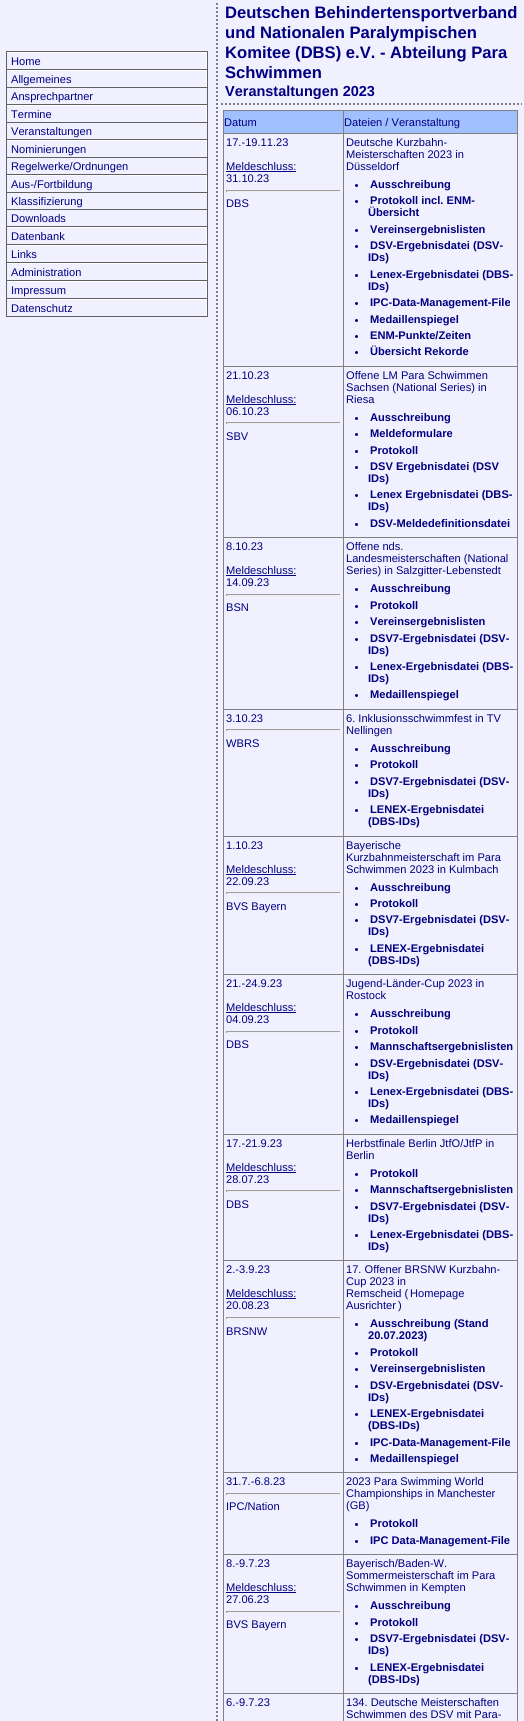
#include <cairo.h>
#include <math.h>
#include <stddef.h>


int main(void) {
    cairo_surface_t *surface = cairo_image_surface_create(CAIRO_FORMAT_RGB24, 524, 1721);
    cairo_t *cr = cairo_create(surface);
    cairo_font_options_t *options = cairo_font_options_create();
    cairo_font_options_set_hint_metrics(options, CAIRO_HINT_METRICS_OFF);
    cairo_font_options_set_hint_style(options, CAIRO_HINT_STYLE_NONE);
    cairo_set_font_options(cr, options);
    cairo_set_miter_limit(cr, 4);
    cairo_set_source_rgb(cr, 0.941, 0.941, 1);
    cairo_paint(cr);
    cairo_new_path(cr);
    cairo_move_to(cr, 217, 3);
    cairo_line_to(cr, 217, 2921);
    cairo_set_source_rgb(cr, 0.502, 0.502, 0.502);
    cairo_set_dash(cr, (double[]){2, 2}, 2, 0);
    cairo_stroke(cr);
    cairo_set_source_rgb(cr, 0.376, 0.376, 0.376);
    cairo_rectangle(cr, 6, 51, 202, 1);
    cairo_fill(cr);
    cairo_rectangle(cr, 207, 51, 1, 266);
    cairo_fill(cr);
    cairo_rectangle(cr, 6, 51, 1, 266);
    cairo_fill(cr);
    cairo_rectangle(cr, 7, 69, 200, 1);
    cairo_fill(cr);
    cairo_set_source_rgb(cr, 1, 1, 1);
    cairo_rectangle(cr, 7, 52, 200, 1);
    cairo_fill(cr);
    cairo_rectangle(cr, 206, 52, 1, 17);
    cairo_fill(cr);
    cairo_select_font_face(cr, "Liberation Sans", CAIRO_FONT_SLANT_NORMAL, CAIRO_FONT_WEIGHT_NORMAL);
    cairo_set_font_size(cr, 11.1);
    cairo_set_source_rgb(cr, 0, 0, 0.502);
    cairo_move_to(cr, 11, 65);
    cairo_show_text(cr, "Home");
    cairo_set_source_rgb(cr, 0.376, 0.376, 0.376);
    cairo_rectangle(cr, 7, 87, 200, 1);
    cairo_fill(cr);
    cairo_set_source_rgb(cr, 1, 1, 1);
    cairo_rectangle(cr, 7, 70, 200, 1);
    cairo_fill(cr);
    cairo_rectangle(cr, 206, 70, 1, 17);
    cairo_fill(cr);
    cairo_set_source_rgb(cr, 0, 0, 0.502);
    cairo_move_to(cr, 11, 83);
    cairo_show_text(cr, "Allgemeines");
    cairo_set_source_rgb(cr, 0.376, 0.376, 0.376);
    cairo_rectangle(cr, 7, 104, 200, 1);
    cairo_fill(cr);
    cairo_set_source_rgb(cr, 0, 0, 0.502);
    cairo_move_to(cr, 11, 100);
    cairo_show_text(cr, "Ansprechpartner");
    cairo_set_source_rgb(cr, 0.376, 0.376, 0.376);
    cairo_rectangle(cr, 7, 122, 200, 1);
    cairo_fill(cr);
    cairo_set_source_rgb(cr, 1, 1, 1);
    cairo_rectangle(cr, 7, 105, 200, 1);
    cairo_fill(cr);
    cairo_rectangle(cr, 206, 105, 1, 17);
    cairo_fill(cr);
    cairo_set_source_rgb(cr, 0, 0, 0.502);
    cairo_move_to(cr, 11, 118);
    cairo_show_text(cr, "Termine");
    cairo_set_source_rgb(cr, 0.376, 0.376, 0.376);
    cairo_rectangle(cr, 7, 139, 200, 1);
    cairo_fill(cr);
    cairo_set_source_rgb(cr, 0, 0, 0.502);
    cairo_move_to(cr, 11, 135);
    cairo_show_text(cr, "Veranstaltungen");
    cairo_set_source_rgb(cr, 0.376, 0.376, 0.376);
    cairo_rectangle(cr, 7, 157, 200, 1);
    cairo_fill(cr);
    cairo_set_source_rgb(cr, 1, 1, 1);
    cairo_rectangle(cr, 7, 140, 200, 1);
    cairo_fill(cr);
    cairo_rectangle(cr, 206, 140, 1, 17);
    cairo_fill(cr);
    cairo_set_source_rgb(cr, 0, 0, 0.502);
    cairo_move_to(cr, 11, 153);
    cairo_show_text(cr, "Nominierungen");
    cairo_set_source_rgb(cr, 0.376, 0.376, 0.376);
    cairo_rectangle(cr, 7, 174, 200, 1);
    cairo_fill(cr);
    cairo_set_source_rgb(cr, 0, 0, 0.502);
    cairo_move_to(cr, 11, 170);
    cairo_show_text(cr, "Regelwerke/Ordnungen");
    cairo_set_source_rgb(cr, 0.376, 0.376, 0.376);
    cairo_rectangle(cr, 7, 192, 200, 1);
    cairo_fill(cr);
    cairo_set_source_rgb(cr, 1, 1, 1);
    cairo_rectangle(cr, 7, 175, 200, 1);
    cairo_fill(cr);
    cairo_rectangle(cr, 206, 175, 1, 17);
    cairo_fill(cr);
    cairo_set_source_rgb(cr, 0, 0, 0.502);
    cairo_move_to(cr, 11, 188);
    cairo_show_text(cr, "Aus-/Fortbildung");
    cairo_set_source_rgb(cr, 0.376, 0.376, 0.376);
    cairo_rectangle(cr, 7, 209, 200, 1);
    cairo_fill(cr);
    cairo_set_source_rgb(cr, 0, 0, 0.502);
    cairo_move_to(cr, 11, 205);
    cairo_show_text(cr, "Klassifizierung");
    cairo_set_source_rgb(cr, 0.376, 0.376, 0.376);
    cairo_rectangle(cr, 7, 226, 200, 1);
    cairo_fill(cr);
    cairo_set_source_rgb(cr, 0, 0, 0.502);
    cairo_move_to(cr, 11, 222);
    cairo_show_text(cr, "Downloads");
    cairo_set_source_rgb(cr, 0.376, 0.376, 0.376);
    cairo_rectangle(cr, 7, 244, 200, 1);
    cairo_fill(cr);
    cairo_set_source_rgb(cr, 1, 1, 1);
    cairo_rectangle(cr, 7, 227, 200, 1);
    cairo_fill(cr);
    cairo_rectangle(cr, 206, 227, 1, 17);
    cairo_fill(cr);
    cairo_set_source_rgb(cr, 0, 0, 0.502);
    cairo_move_to(cr, 11, 240);
    cairo_show_text(cr, "Datenbank");
    cairo_set_source_rgb(cr, 0.376, 0.376, 0.376);
    cairo_rectangle(cr, 7, 262, 200, 1);
    cairo_fill(cr);
    cairo_set_source_rgb(cr, 1, 1, 1);
    cairo_rectangle(cr, 7, 245, 200, 1);
    cairo_fill(cr);
    cairo_rectangle(cr, 206, 245, 1, 17);
    cairo_fill(cr);
    cairo_set_source_rgb(cr, 0, 0, 0.502);
    cairo_move_to(cr, 11, 258);
    cairo_show_text(cr, "Links");
    cairo_set_source_rgb(cr, 0.376, 0.376, 0.376);
    cairo_rectangle(cr, 7, 280, 200, 1);
    cairo_fill(cr);
    cairo_set_source_rgb(cr, 1, 1, 1);
    cairo_rectangle(cr, 7, 263, 200, 1);
    cairo_fill(cr);
    cairo_rectangle(cr, 206, 263, 1, 17);
    cairo_fill(cr);
    cairo_set_source_rgb(cr, 0, 0, 0.502);
    cairo_move_to(cr, 11, 276);
    cairo_show_text(cr, "Administration");
    cairo_set_source_rgb(cr, 0.376, 0.376, 0.376);
    cairo_rectangle(cr, 7, 298, 200, 1);
    cairo_fill(cr);
    cairo_set_source_rgb(cr, 1, 1, 1);
    cairo_rectangle(cr, 7, 281, 200, 1);
    cairo_fill(cr);
    cairo_rectangle(cr, 206, 281, 1, 17);
    cairo_fill(cr);
    cairo_set_source_rgb(cr, 0, 0, 0.502);
    cairo_move_to(cr, 11, 294);
    cairo_show_text(cr, "Impressum");
    cairo_set_source_rgb(cr, 0.376, 0.376, 0.376);
    cairo_rectangle(cr, 7, 316, 200, 1);
    cairo_fill(cr);
    cairo_set_source_rgb(cr, 1, 1, 1);
    cairo_rectangle(cr, 7, 299, 200, 1);
    cairo_fill(cr);
    cairo_rectangle(cr, 206, 299, 1, 17);
    cairo_fill(cr);
    cairo_set_source_rgb(cr, 0, 0, 0.502);
    cairo_move_to(cr, 11, 312);
    cairo_show_text(cr, "Datenschutz");
    cairo_new_path(cr);
    cairo_move_to(cr, 221, 104);
    cairo_line_to(cr, 522, 104);
    cairo_set_source_rgb(cr, 0.502, 0.502, 0.502);
    cairo_stroke(cr);
    cairo_select_font_face(cr, "Liberation Sans", CAIRO_FONT_SLANT_NORMAL, CAIRO_FONT_WEIGHT_BOLD);
    cairo_set_font_size(cr, 16.6);
    cairo_set_source_rgb(cr, 0, 0, 0.502);
    cairo_move_to(cr, 225, 18);
    cairo_show_text(cr, "Deutschen Behindertensportverband");
    cairo_move_to(cr, 225, 38);
    cairo_show_text(cr, "und Nationalen Paralympischen");
    cairo_move_to(cr, 225, 58);
    cairo_show_text(cr, "Komitee (DBS) e.V. - Abteilung Para");
    cairo_move_to(cr, 225, 78);
    cairo_show_text(cr, "Schwimmen");
    cairo_set_font_size(cr, 14.5);
    cairo_move_to(cr, 225, 96);
    cairo_show_text(cr, "Veranstaltungen 2023");
    cairo_set_source_rgb(cr, 0.502, 0.502, 0.502);
    cairo_rectangle(cr, 223, 110, 295, 1);
    cairo_fill(cr);
    cairo_rectangle(cr, 517, 110, 1, 1611);
    cairo_fill(cr);
    cairo_rectangle(cr, 223, 110, 1, 1611);
    cairo_fill(cr);
    cairo_set_source_rgb(cr, 0.627, 0.753, 1);
    cairo_rectangle(cr, 224, 111, 119, 22);
    cairo_fill(cr);
    cairo_set_source_rgb(cr, 0.502, 0.502, 0.502);
    cairo_rectangle(cr, 343, 1693, 1, 28);
    cairo_fill(cr);
    cairo_rectangle(cr, 343, 1693, 175, 1);
    cairo_fill(cr);
    cairo_rectangle(cr, 343, 1554, 1, 140);
    cairo_fill(cr);
    cairo_rectangle(cr, 343, 1554, 175, 1);
    cairo_fill(cr);
    cairo_rectangle(cr, 343, 1472, 1, 83);
    cairo_fill(cr);
    cairo_rectangle(cr, 343, 1472, 175, 1);
    cairo_fill(cr);
    cairo_rectangle(cr, 343, 1260, 1, 213);
    cairo_fill(cr);
    cairo_rectangle(cr, 343, 1260, 175, 1);
    cairo_fill(cr);
    cairo_rectangle(cr, 343, 1134, 1, 127);
    cairo_fill(cr);
    cairo_rectangle(cr, 343, 1134, 175, 1);
    cairo_fill(cr);
    cairo_rectangle(cr, 343, 974, 1, 161);
    cairo_fill(cr);
    cairo_rectangle(cr, 343, 974, 175, 1);
    cairo_fill(cr);
    cairo_rectangle(cr, 343, 836, 1, 139);
    cairo_fill(cr);
    cairo_rectangle(cr, 343, 836, 175, 1);
    cairo_fill(cr);
    cairo_rectangle(cr, 343, 709, 1, 128);
    cairo_fill(cr);
    cairo_rectangle(cr, 343, 709, 175, 1);
    cairo_fill(cr);
    cairo_rectangle(cr, 343, 537, 1, 173);
    cairo_fill(cr);
    cairo_rectangle(cr, 343, 537, 175, 1);
    cairo_fill(cr);
    cairo_rectangle(cr, 343, 366, 1, 172);
    cairo_fill(cr);
    cairo_rectangle(cr, 343, 366, 175, 1);
    cairo_fill(cr);
    cairo_rectangle(cr, 343, 133, 1, 234);
    cairo_fill(cr);
    cairo_rectangle(cr, 343, 133, 175, 1);
    cairo_fill(cr);
    cairo_rectangle(cr, 343, 110, 1, 24);
    cairo_fill(cr);
    cairo_rectangle(cr, 223, 133, 121, 1);
    cairo_fill(cr);
    cairo_select_font_face(cr, "Liberation Sans", CAIRO_FONT_SLANT_NORMAL, CAIRO_FONT_WEIGHT_NORMAL);
    cairo_set_font_size(cr, 11.1);
    cairo_set_source_rgb(cr, 0, 0, 0.502);
    cairo_move_to(cr, 224, 126);
    cairo_show_text(cr, "Datum");
    cairo_set_source_rgb(cr, 0.627, 0.753, 1);
    cairo_rectangle(cr, 344, 111, 173, 22);
    cairo_fill(cr);
    cairo_set_source_rgb(cr, 0, 0, 0.502);
    cairo_move_to(cr, 344, 126);
    cairo_show_text(cr, "Dateien / Veranstaltung");
    cairo_set_source_rgb(cr, 0.502, 0.502, 0.502);
    cairo_rectangle(cr, 223, 366, 121, 1);
    cairo_fill(cr);
    cairo_set_source_rgb(cr, 0, 0, 0.502);
    cairo_move_to(cr, 226, 146);
    cairo_show_text(cr, "17.-19.11.23");
    cairo_move_to(cr, 226, 170);
    cairo_show_text(cr, "Meldeschluss:");
    cairo_rectangle(cr, 226, 171, 70, 1);
    cairo_fill(cr);
    cairo_move_to(cr, 226, 182);
    cairo_show_text(cr, "31.10.23");
    cairo_set_source_rgb(cr, 0.624, 0.624, 0.624);
    cairo_rectangle(cr, 226, 190, 115, 1);
    cairo_fill(cr);
    cairo_set_source_rgb(cr, 0.933, 0.933, 0.933);
    cairo_rectangle(cr, 340, 190, 1, 2);
    cairo_fill(cr);
    cairo_rectangle(cr, 226, 191, 115, 1);
    cairo_fill(cr);
    cairo_set_source_rgb(cr, 0.624, 0.624, 0.624);
    cairo_rectangle(cr, 226, 190, 1, 2);
    cairo_fill(cr);
    cairo_set_source_rgb(cr, 0, 0, 0.502);
    cairo_move_to(cr, 226, 207);
    cairo_show_text(cr, "DBS");
    cairo_move_to(cr, 346, 146);
    cairo_show_text(cr, "Deutsche Kurzbahn-");
    cairo_move_to(cr, 346, 158);
    cairo_show_text(cr, "Meisterschaften 2023 in");
    cairo_move_to(cr, 346, 170);
    cairo_show_text(cr, "Düsseldorf");
    cairo_new_path(cr);
    cairo_arc(cr, 356.5, 185.5, 1.5, 0, 2 * M_PI);
    cairo_fill(cr);
    cairo_select_font_face(cr, "Liberation Sans", CAIRO_FONT_SLANT_NORMAL, CAIRO_FONT_WEIGHT_BOLD);
    cairo_move_to(cr, 370, 188);
    cairo_show_text(cr, "Ausschreibung");
    cairo_new_path(cr);
    cairo_arc(cr, 356.5, 201.5, 1.5, 0, 2 * M_PI);
    cairo_fill(cr);
    cairo_move_to(cr, 370, 204);
    cairo_show_text(cr, "Protokoll incl. ENM-");
    cairo_move_to(cr, 368, 216);
    cairo_show_text(cr, "Übersicht");
    cairo_new_path(cr);
    cairo_arc(cr, 356.5, 230.5, 1.5, 0, 2 * M_PI);
    cairo_fill(cr);
    cairo_move_to(cr, 370, 233);
    cairo_show_text(cr, "Vereinsergebnislisten");
    cairo_new_path(cr);
    cairo_arc(cr, 356.5, 246.5, 1.5, 0, 2 * M_PI);
    cairo_fill(cr);
    cairo_move_to(cr, 370, 249);
    cairo_show_text(cr, "DSV-Ergebnisdatei (DSV-");
    cairo_move_to(cr, 368, 261);
    cairo_show_text(cr, "IDs)");
    cairo_new_path(cr);
    cairo_arc(cr, 356.5, 275.5, 1.5, 0, 2 * M_PI);
    cairo_fill(cr);
    cairo_move_to(cr, 370, 278);
    cairo_show_text(cr, "Lenex-Ergebnisdatei (DBS-");
    cairo_move_to(cr, 368, 290);
    cairo_show_text(cr, "IDs)");
    cairo_new_path(cr);
    cairo_arc(cr, 356.5, 303.5, 1.5, 0, 2 * M_PI);
    cairo_fill(cr);
    cairo_move_to(cr, 370, 306);
    cairo_show_text(cr, "IPC-Data-Management-File");
    cairo_new_path(cr);
    cairo_arc(cr, 356.5, 320.5, 1.5, 0, 2 * M_PI);
    cairo_fill(cr);
    cairo_move_to(cr, 370, 323);
    cairo_show_text(cr, "Medaillenspiegel");
    cairo_new_path(cr);
    cairo_arc(cr, 356.5, 336.5, 1.5, 0, 2 * M_PI);
    cairo_fill(cr);
    cairo_move_to(cr, 370, 339);
    cairo_show_text(cr, "ENM-Punkte/Zeiten");
    cairo_new_path(cr);
    cairo_arc(cr, 356.5, 352.5, 1.5, 0, 2 * M_PI);
    cairo_fill(cr);
    cairo_move_to(cr, 370, 355);
    cairo_show_text(cr, "Übersicht Rekorde");
    cairo_set_source_rgb(cr, 0.502, 0.502, 0.502);
    cairo_rectangle(cr, 223, 537, 121, 1);
    cairo_fill(cr);
    cairo_select_font_face(cr, "Liberation Sans", CAIRO_FONT_SLANT_NORMAL, CAIRO_FONT_WEIGHT_NORMAL);
    cairo_set_source_rgb(cr, 0, 0, 0.502);
    cairo_move_to(cr, 226, 379);
    cairo_show_text(cr, "21.10.23");
    cairo_move_to(cr, 226, 403);
    cairo_show_text(cr, "Meldeschluss:");
    cairo_rectangle(cr, 226, 404, 70, 1);
    cairo_fill(cr);
    cairo_move_to(cr, 226, 415);
    cairo_show_text(cr, "06.10.23");
    cairo_set_source_rgb(cr, 0.624, 0.624, 0.624);
    cairo_rectangle(cr, 226, 422, 115, 1);
    cairo_fill(cr);
    cairo_set_source_rgb(cr, 0.933, 0.933, 0.933);
    cairo_rectangle(cr, 340, 422, 1, 2);
    cairo_fill(cr);
    cairo_rectangle(cr, 226, 423, 115, 1);
    cairo_fill(cr);
    cairo_set_source_rgb(cr, 0.624, 0.624, 0.624);
    cairo_rectangle(cr, 226, 422, 1, 2);
    cairo_fill(cr);
    cairo_set_source_rgb(cr, 0, 0, 0.502);
    cairo_move_to(cr, 226, 440);
    cairo_show_text(cr, "SBV");
    cairo_move_to(cr, 346, 379);
    cairo_show_text(cr, "Offene LM Para Schwimmen");
    cairo_move_to(cr, 346, 391);
    cairo_show_text(cr, "Sachsen (National Series) in");
    cairo_move_to(cr, 346, 403);
    cairo_show_text(cr, "Riesa");
    cairo_new_path(cr);
    cairo_arc(cr, 356.5, 418.5, 1.5, 0, 2 * M_PI);
    cairo_fill(cr);
    cairo_select_font_face(cr, "Liberation Sans", CAIRO_FONT_SLANT_NORMAL, CAIRO_FONT_WEIGHT_BOLD);
    cairo_move_to(cr, 370, 421);
    cairo_show_text(cr, "Ausschreibung");
    cairo_new_path(cr);
    cairo_arc(cr, 356.5, 434.5, 1.5, 0, 2 * M_PI);
    cairo_fill(cr);
    cairo_move_to(cr, 370, 437);
    cairo_show_text(cr, "Meldeformulare");
    cairo_new_path(cr);
    cairo_arc(cr, 356.5, 451.5, 1.5, 0, 2 * M_PI);
    cairo_fill(cr);
    cairo_move_to(cr, 370, 454);
    cairo_show_text(cr, "Protokoll");
    cairo_new_path(cr);
    cairo_arc(cr, 356.5, 467.5, 1.5, 0, 2 * M_PI);
    cairo_fill(cr);
    cairo_move_to(cr, 370, 470);
    cairo_show_text(cr, "DSV Ergebnisdatei (DSV");
    cairo_move_to(cr, 368, 482);
    cairo_show_text(cr, "IDs)");
    cairo_new_path(cr);
    cairo_arc(cr, 356.5, 495.5, 1.5, 0, 2 * M_PI);
    cairo_fill(cr);
    cairo_move_to(cr, 370, 498);
    cairo_show_text(cr, "Lenex Ergebnisdatei (DBS-");
    cairo_move_to(cr, 368, 510);
    cairo_show_text(cr, "IDs)");
    cairo_new_path(cr);
    cairo_arc(cr, 356.5, 524.5, 1.5, 0, 2 * M_PI);
    cairo_fill(cr);
    cairo_move_to(cr, 370, 527);
    cairo_show_text(cr, "DSV-Meldedefinitionsdatei");
    cairo_set_source_rgb(cr, 0.502, 0.502, 0.502);
    cairo_rectangle(cr, 223, 709, 121, 1);
    cairo_fill(cr);
    cairo_select_font_face(cr, "Liberation Sans", CAIRO_FONT_SLANT_NORMAL, CAIRO_FONT_WEIGHT_NORMAL);
    cairo_set_source_rgb(cr, 0, 0, 0.502);
    cairo_move_to(cr, 226, 550);
    cairo_show_text(cr, "8.10.23");
    cairo_move_to(cr, 226, 574);
    cairo_show_text(cr, "Meldeschluss:");
    cairo_rectangle(cr, 226, 575, 70, 1);
    cairo_fill(cr);
    cairo_move_to(cr, 226, 586);
    cairo_show_text(cr, "14.09.23");
    cairo_set_source_rgb(cr, 0.624, 0.624, 0.624);
    cairo_rectangle(cr, 226, 594, 115, 1);
    cairo_fill(cr);
    cairo_set_source_rgb(cr, 0.933, 0.933, 0.933);
    cairo_rectangle(cr, 340, 594, 1, 2);
    cairo_fill(cr);
    cairo_rectangle(cr, 226, 595, 115, 1);
    cairo_fill(cr);
    cairo_set_source_rgb(cr, 0.624, 0.624, 0.624);
    cairo_rectangle(cr, 226, 594, 1, 2);
    cairo_fill(cr);
    cairo_set_source_rgb(cr, 0, 0, 0.502);
    cairo_move_to(cr, 226, 611);
    cairo_show_text(cr, "BSN");
    cairo_move_to(cr, 346, 550);
    cairo_show_text(cr, "Offene nds.");
    cairo_move_to(cr, 346, 562);
    cairo_show_text(cr, "Landesmeisterschaften (National");
    cairo_move_to(cr, 346, 574);
    cairo_show_text(cr, "Series) in Salzgitter-Lebenstedt");
    cairo_new_path(cr);
    cairo_arc(cr, 356.5, 589.5, 1.5, 0, 2 * M_PI);
    cairo_fill(cr);
    cairo_select_font_face(cr, "Liberation Sans", CAIRO_FONT_SLANT_NORMAL, CAIRO_FONT_WEIGHT_BOLD);
    cairo_move_to(cr, 370, 592);
    cairo_show_text(cr, "Ausschreibung");
    cairo_new_path(cr);
    cairo_arc(cr, 356.5, 606.5, 1.5, 0, 2 * M_PI);
    cairo_fill(cr);
    cairo_move_to(cr, 370, 609);
    cairo_show_text(cr, "Protokoll");
    cairo_new_path(cr);
    cairo_arc(cr, 356.5, 622.5, 1.5, 0, 2 * M_PI);
    cairo_fill(cr);
    cairo_move_to(cr, 370, 625);
    cairo_show_text(cr, "Vereinsergebnislisten");
    cairo_new_path(cr);
    cairo_arc(cr, 356.5, 639.5, 1.5, 0, 2 * M_PI);
    cairo_fill(cr);
    cairo_move_to(cr, 370, 642);
    cairo_show_text(cr, "DSV7-Ergebnisdatei (DSV-");
    cairo_move_to(cr, 368, 654);
    cairo_show_text(cr, "IDs)");
    cairo_new_path(cr);
    cairo_arc(cr, 356.5, 667.5, 1.5, 0, 2 * M_PI);
    cairo_fill(cr);
    cairo_move_to(cr, 370, 670);
    cairo_show_text(cr, "Lenex-Ergebnisdatei (DBS-");
    cairo_move_to(cr, 368, 682);
    cairo_show_text(cr, "IDs)");
    cairo_new_path(cr);
    cairo_arc(cr, 356.5, 695.5, 1.5, 0, 2 * M_PI);
    cairo_fill(cr);
    cairo_move_to(cr, 370, 698);
    cairo_show_text(cr, "Medaillenspiegel");
    cairo_set_source_rgb(cr, 0.502, 0.502, 0.502);
    cairo_rectangle(cr, 223, 836, 121, 1);
    cairo_fill(cr);
    cairo_select_font_face(cr, "Liberation Sans", CAIRO_FONT_SLANT_NORMAL, CAIRO_FONT_WEIGHT_NORMAL);
    cairo_set_source_rgb(cr, 0, 0, 0.502);
    cairo_move_to(cr, 226, 722);
    cairo_show_text(cr, "3.10.23");
    cairo_set_source_rgb(cr, 0.624, 0.624, 0.624);
    cairo_rectangle(cr, 226, 729, 115, 1);
    cairo_fill(cr);
    cairo_set_source_rgb(cr, 0.933, 0.933, 0.933);
    cairo_rectangle(cr, 340, 729, 1, 2);
    cairo_fill(cr);
    cairo_rectangle(cr, 226, 730, 115, 1);
    cairo_fill(cr);
    cairo_set_source_rgb(cr, 0.624, 0.624, 0.624);
    cairo_rectangle(cr, 226, 729, 1, 2);
    cairo_fill(cr);
    cairo_set_source_rgb(cr, 0, 0, 0.502);
    cairo_move_to(cr, 226, 747);
    cairo_show_text(cr, "WBRS");
    cairo_move_to(cr, 346, 722);
    cairo_show_text(cr, "6. Inklusionsschwimmfest in TV");
    cairo_move_to(cr, 346, 734);
    cairo_show_text(cr, "Nellingen");
    cairo_new_path(cr);
    cairo_arc(cr, 356.5, 749.5, 1.5, 0, 2 * M_PI);
    cairo_fill(cr);
    cairo_select_font_face(cr, "Liberation Sans", CAIRO_FONT_SLANT_NORMAL, CAIRO_FONT_WEIGHT_BOLD);
    cairo_move_to(cr, 370, 752);
    cairo_show_text(cr, "Ausschreibung");
    cairo_new_path(cr);
    cairo_arc(cr, 356.5, 765.5, 1.5, 0, 2 * M_PI);
    cairo_fill(cr);
    cairo_move_to(cr, 370, 768);
    cairo_show_text(cr, "Protokoll");
    cairo_new_path(cr);
    cairo_arc(cr, 356.5, 782.5, 1.5, 0, 2 * M_PI);
    cairo_fill(cr);
    cairo_move_to(cr, 370, 785);
    cairo_show_text(cr, "DSV7-Ergebnisdatei (DSV-");
    cairo_move_to(cr, 368, 797);
    cairo_show_text(cr, "IDs)");
    cairo_new_path(cr);
    cairo_arc(cr, 356.5, 810.5, 1.5, 0, 2 * M_PI);
    cairo_fill(cr);
    cairo_move_to(cr, 370, 813);
    cairo_show_text(cr, "LENEX-Ergebnisdatei");
    cairo_move_to(cr, 368, 825);
    cairo_show_text(cr, "(DBS-IDs)");
    cairo_set_source_rgb(cr, 0.502, 0.502, 0.502);
    cairo_rectangle(cr, 223, 974, 121, 1);
    cairo_fill(cr);
    cairo_select_font_face(cr, "Liberation Sans", CAIRO_FONT_SLANT_NORMAL, CAIRO_FONT_WEIGHT_NORMAL);
    cairo_set_source_rgb(cr, 0, 0, 0.502);
    cairo_move_to(cr, 226, 849);
    cairo_show_text(cr, "1.10.23");
    cairo_move_to(cr, 226, 873);
    cairo_show_text(cr, "Meldeschluss:");
    cairo_rectangle(cr, 226, 874, 70, 1);
    cairo_fill(cr);
    cairo_move_to(cr, 226, 885);
    cairo_show_text(cr, "22.09.23");
    cairo_set_source_rgb(cr, 0.624, 0.624, 0.624);
    cairo_rectangle(cr, 226, 892, 115, 1);
    cairo_fill(cr);
    cairo_set_source_rgb(cr, 0.933, 0.933, 0.933);
    cairo_rectangle(cr, 340, 892, 1, 2);
    cairo_fill(cr);
    cairo_rectangle(cr, 226, 893, 115, 1);
    cairo_fill(cr);
    cairo_set_source_rgb(cr, 0.624, 0.624, 0.624);
    cairo_rectangle(cr, 226, 892, 1, 2);
    cairo_fill(cr);
    cairo_set_source_rgb(cr, 0, 0, 0.502);
    cairo_move_to(cr, 226, 910);
    cairo_show_text(cr, "BVS Bayern");
    cairo_move_to(cr, 346, 849);
    cairo_show_text(cr, "Bayerische");
    cairo_move_to(cr, 346, 861);
    cairo_show_text(cr, "Kurzbahnmeisterschaft im Para");
    cairo_move_to(cr, 346, 873);
    cairo_show_text(cr, "Schwimmen 2023 in Kulmbach");
    cairo_new_path(cr);
    cairo_arc(cr, 356.5, 888.5, 1.5, 0, 2 * M_PI);
    cairo_fill(cr);
    cairo_select_font_face(cr, "Liberation Sans", CAIRO_FONT_SLANT_NORMAL, CAIRO_FONT_WEIGHT_BOLD);
    cairo_move_to(cr, 370, 891);
    cairo_show_text(cr, "Ausschreibung");
    cairo_new_path(cr);
    cairo_arc(cr, 356.5, 904.5, 1.5, 0, 2 * M_PI);
    cairo_fill(cr);
    cairo_move_to(cr, 370, 907);
    cairo_show_text(cr, "Protokoll");
    cairo_new_path(cr);
    cairo_arc(cr, 356.5, 920.5, 1.5, 0, 2 * M_PI);
    cairo_fill(cr);
    cairo_move_to(cr, 370, 923);
    cairo_show_text(cr, "DSV7-Ergebnisdatei (DSV-");
    cairo_move_to(cr, 368, 935);
    cairo_show_text(cr, "IDs)");
    cairo_new_path(cr);
    cairo_arc(cr, 356.5, 949.5, 1.5, 0, 2 * M_PI);
    cairo_fill(cr);
    cairo_move_to(cr, 370, 952);
    cairo_show_text(cr, "LENEX-Ergebnisdatei");
    cairo_move_to(cr, 368, 964);
    cairo_show_text(cr, "(DBS-IDs)");
    cairo_set_source_rgb(cr, 0.502, 0.502, 0.502);
    cairo_rectangle(cr, 223, 1134, 121, 1);
    cairo_fill(cr);
    cairo_select_font_face(cr, "Liberation Sans", CAIRO_FONT_SLANT_NORMAL, CAIRO_FONT_WEIGHT_NORMAL);
    cairo_set_source_rgb(cr, 0, 0, 0.502);
    cairo_move_to(cr, 226, 987);
    cairo_show_text(cr, "21.-24.9.23");
    cairo_move_to(cr, 226, 1011);
    cairo_show_text(cr, "Meldeschluss:");
    cairo_rectangle(cr, 226, 1012, 70, 1);
    cairo_fill(cr);
    cairo_move_to(cr, 226, 1023);
    cairo_show_text(cr, "04.09.23");
    cairo_set_source_rgb(cr, 0.624, 0.624, 0.624);
    cairo_rectangle(cr, 226, 1031, 115, 1);
    cairo_fill(cr);
    cairo_set_source_rgb(cr, 0.933, 0.933, 0.933);
    cairo_rectangle(cr, 340, 1031, 1, 2);
    cairo_fill(cr);
    cairo_rectangle(cr, 226, 1032, 115, 1);
    cairo_fill(cr);
    cairo_set_source_rgb(cr, 0.624, 0.624, 0.624);
    cairo_rectangle(cr, 226, 1031, 1, 2);
    cairo_fill(cr);
    cairo_set_source_rgb(cr, 0, 0, 0.502);
    cairo_move_to(cr, 226, 1048);
    cairo_show_text(cr, "DBS");
    cairo_move_to(cr, 346, 987);
    cairo_show_text(cr, "Jugend-Länder-Cup 2023 in");
    cairo_move_to(cr, 346, 999);
    cairo_show_text(cr, "Rostock");
    cairo_new_path(cr);
    cairo_arc(cr, 356.5, 1014.5, 1.5, 0, 2 * M_PI);
    cairo_fill(cr);
    cairo_select_font_face(cr, "Liberation Sans", CAIRO_FONT_SLANT_NORMAL, CAIRO_FONT_WEIGHT_BOLD);
    cairo_move_to(cr, 370, 1017);
    cairo_show_text(cr, "Ausschreibung");
    cairo_new_path(cr);
    cairo_arc(cr, 356.5, 1031.5, 1.5, 0, 2 * M_PI);
    cairo_fill(cr);
    cairo_move_to(cr, 370, 1034);
    cairo_show_text(cr, "Protokoll");
    cairo_new_path(cr);
    cairo_arc(cr, 356.5, 1047.5, 1.5, 0, 2 * M_PI);
    cairo_fill(cr);
    cairo_move_to(cr, 370, 1050);
    cairo_show_text(cr, "Mannschaftsergebnislisten");
    cairo_new_path(cr);
    cairo_arc(cr, 356.5, 1064.5, 1.5, 0, 2 * M_PI);
    cairo_fill(cr);
    cairo_move_to(cr, 370, 1067);
    cairo_show_text(cr, "DSV-Ergebnisdatei (DSV-");
    cairo_move_to(cr, 368, 1079);
    cairo_show_text(cr, "IDs)");
    cairo_new_path(cr);
    cairo_arc(cr, 356.5, 1092.5, 1.5, 0, 2 * M_PI);
    cairo_fill(cr);
    cairo_move_to(cr, 370, 1095);
    cairo_show_text(cr, "Lenex-Ergebnisdatei (DBS-");
    cairo_move_to(cr, 368, 1107);
    cairo_show_text(cr, "IDs)");
    cairo_new_path(cr);
    cairo_arc(cr, 356.5, 1120.5, 1.5, 0, 2 * M_PI);
    cairo_fill(cr);
    cairo_move_to(cr, 370, 1123);
    cairo_show_text(cr, "Medaillenspiegel");
    cairo_set_source_rgb(cr, 0.502, 0.502, 0.502);
    cairo_rectangle(cr, 223, 1260, 121, 1);
    cairo_fill(cr);
    cairo_select_font_face(cr, "Liberation Sans", CAIRO_FONT_SLANT_NORMAL, CAIRO_FONT_WEIGHT_NORMAL);
    cairo_set_source_rgb(cr, 0, 0, 0.502);
    cairo_move_to(cr, 226, 1147);
    cairo_show_text(cr, "17.-21.9.23");
    cairo_move_to(cr, 226, 1171);
    cairo_show_text(cr, "Meldeschluss:");
    cairo_rectangle(cr, 226, 1172, 70, 1);
    cairo_fill(cr);
    cairo_move_to(cr, 226, 1183);
    cairo_show_text(cr, "28.07.23");
    cairo_set_source_rgb(cr, 0.624, 0.624, 0.624);
    cairo_rectangle(cr, 226, 1190, 115, 1);
    cairo_fill(cr);
    cairo_set_source_rgb(cr, 0.933, 0.933, 0.933);
    cairo_rectangle(cr, 340, 1190, 1, 2);
    cairo_fill(cr);
    cairo_rectangle(cr, 226, 1191, 115, 1);
    cairo_fill(cr);
    cairo_set_source_rgb(cr, 0.624, 0.624, 0.624);
    cairo_rectangle(cr, 226, 1190, 1, 2);
    cairo_fill(cr);
    cairo_set_source_rgb(cr, 0, 0, 0.502);
    cairo_move_to(cr, 226, 1208);
    cairo_show_text(cr, "DBS");
    cairo_move_to(cr, 346, 1147);
    cairo_show_text(cr, "Herbstfinale Berlin JtfO/JtfP in");
    cairo_move_to(cr, 346, 1159);
    cairo_show_text(cr, "Berlin");
    cairo_new_path(cr);
    cairo_arc(cr, 356.5, 1174.5, 1.5, 0, 2 * M_PI);
    cairo_fill(cr);
    cairo_select_font_face(cr, "Liberation Sans", CAIRO_FONT_SLANT_NORMAL, CAIRO_FONT_WEIGHT_BOLD);
    cairo_move_to(cr, 370, 1177);
    cairo_show_text(cr, "Protokoll");
    cairo_new_path(cr);
    cairo_arc(cr, 356.5, 1190.5, 1.5, 0, 2 * M_PI);
    cairo_fill(cr);
    cairo_move_to(cr, 370, 1193);
    cairo_show_text(cr, "Mannschaftsergebnislisten");
    cairo_new_path(cr);
    cairo_arc(cr, 356.5, 1207.5, 1.5, 0, 2 * M_PI);
    cairo_fill(cr);
    cairo_move_to(cr, 370, 1210);
    cairo_show_text(cr, "DSV7-Ergebnisdatei (DSV-");
    cairo_move_to(cr, 368, 1222);
    cairo_show_text(cr, "IDs)");
    cairo_new_path(cr);
    cairo_arc(cr, 356.5, 1235.5, 1.5, 0, 2 * M_PI);
    cairo_fill(cr);
    cairo_move_to(cr, 370, 1238);
    cairo_show_text(cr, "Lenex-Ergebnisdatei (DBS-");
    cairo_move_to(cr, 368, 1250);
    cairo_show_text(cr, "IDs)");
    cairo_set_source_rgb(cr, 0.502, 0.502, 0.502);
    cairo_rectangle(cr, 223, 1472, 121, 1);
    cairo_fill(cr);
    cairo_select_font_face(cr, "Liberation Sans", CAIRO_FONT_SLANT_NORMAL, CAIRO_FONT_WEIGHT_NORMAL);
    cairo_set_source_rgb(cr, 0, 0, 0.502);
    cairo_move_to(cr, 226, 1273);
    cairo_show_text(cr, "2.-3.9.23");
    cairo_move_to(cr, 226, 1297);
    cairo_show_text(cr, "Meldeschluss:");
    cairo_rectangle(cr, 226, 1298, 70, 1);
    cairo_fill(cr);
    cairo_move_to(cr, 226, 1309);
    cairo_show_text(cr, "20.08.23");
    cairo_set_source_rgb(cr, 0.624, 0.624, 0.624);
    cairo_rectangle(cr, 226, 1317, 115, 1);
    cairo_fill(cr);
    cairo_set_source_rgb(cr, 0.933, 0.933, 0.933);
    cairo_rectangle(cr, 340, 1317, 1, 2);
    cairo_fill(cr);
    cairo_rectangle(cr, 226, 1318, 115, 1);
    cairo_fill(cr);
    cairo_set_source_rgb(cr, 0.624, 0.624, 0.624);
    cairo_rectangle(cr, 226, 1317, 1, 2);
    cairo_fill(cr);
    cairo_set_source_rgb(cr, 0, 0, 0.502);
    cairo_move_to(cr, 226, 1335);
    cairo_show_text(cr, "BRSNW");
    cairo_move_to(cr, 346, 1273);
    cairo_show_text(cr, "17. Offener BRSNW Kurzbahn-");
    cairo_move_to(cr, 346, 1285);
    cairo_show_text(cr, "Cup 2023 in");
    cairo_move_to(cr, 346, 1297);
    cairo_show_text(cr, "Remscheid (");
    cairo_move_to(cr, 410, 1297);
    cairo_show_text(cr, "Homepage");
    cairo_move_to(cr, 346, 1309);
    cairo_show_text(cr, "Ausrichter");
    cairo_move_to(cr, 398, 1309);
    cairo_show_text(cr, ")");
    cairo_new_path(cr);
    cairo_arc(cr, 356.5, 1324.5, 1.5, 0, 2 * M_PI);
    cairo_fill(cr);
    cairo_select_font_face(cr, "Liberation Sans", CAIRO_FONT_SLANT_NORMAL, CAIRO_FONT_WEIGHT_BOLD);
    cairo_move_to(cr, 370, 1327);
    cairo_show_text(cr, "Ausschreibung (Stand");
    cairo_move_to(cr, 368, 1339);
    cairo_show_text(cr, "20.07.2023)");
    cairo_new_path(cr);
    cairo_arc(cr, 356.5, 1353.5, 1.5, 0, 2 * M_PI);
    cairo_fill(cr);
    cairo_move_to(cr, 370, 1356);
    cairo_show_text(cr, "Protokoll");
    cairo_new_path(cr);
    cairo_arc(cr, 356.5, 1369.5, 1.5, 0, 2 * M_PI);
    cairo_fill(cr);
    cairo_move_to(cr, 370, 1372);
    cairo_show_text(cr, "Vereinsergebnislisten");
    cairo_new_path(cr);
    cairo_arc(cr, 356.5, 1386.5, 1.5, 0, 2 * M_PI);
    cairo_fill(cr);
    cairo_move_to(cr, 370, 1389);
    cairo_show_text(cr, "DSV-Ergebnisdatei (DSV-");
    cairo_move_to(cr, 368, 1401);
    cairo_show_text(cr, "IDs)");
    cairo_new_path(cr);
    cairo_arc(cr, 356.5, 1414.5, 1.5, 0, 2 * M_PI);
    cairo_fill(cr);
    cairo_move_to(cr, 370, 1417);
    cairo_show_text(cr, "LENEX-Ergebnisdatei");
    cairo_move_to(cr, 368, 1429);
    cairo_show_text(cr, "(DBS-IDs)");
    cairo_new_path(cr);
    cairo_arc(cr, 356.5, 1443.5, 1.5, 0, 2 * M_PI);
    cairo_fill(cr);
    cairo_move_to(cr, 370, 1446);
    cairo_show_text(cr, "IPC-Data-Management-File");
    cairo_new_path(cr);
    cairo_arc(cr, 356.5, 1459.5, 1.5, 0, 2 * M_PI);
    cairo_fill(cr);
    cairo_move_to(cr, 370, 1462);
    cairo_show_text(cr, "Medaillenspiegel");
    cairo_set_source_rgb(cr, 0.502, 0.502, 0.502);
    cairo_rectangle(cr, 223, 1554, 121, 1);
    cairo_fill(cr);
    cairo_select_font_face(cr, "Liberation Sans", CAIRO_FONT_SLANT_NORMAL, CAIRO_FONT_WEIGHT_NORMAL);
    cairo_set_source_rgb(cr, 0, 0, 0.502);
    cairo_move_to(cr, 226, 1485);
    cairo_show_text(cr, "31.7.-6.8.23");
    cairo_set_source_rgb(cr, 0.624, 0.624, 0.624);
    cairo_rectangle(cr, 226, 1493, 115, 1);
    cairo_fill(cr);
    cairo_set_source_rgb(cr, 0.933, 0.933, 0.933);
    cairo_rectangle(cr, 340, 1493, 1, 2);
    cairo_fill(cr);
    cairo_rectangle(cr, 226, 1494, 115, 1);
    cairo_fill(cr);
    cairo_set_source_rgb(cr, 0.624, 0.624, 0.624);
    cairo_rectangle(cr, 226, 1493, 1, 2);
    cairo_fill(cr);
    cairo_set_source_rgb(cr, 0, 0, 0.502);
    cairo_move_to(cr, 226, 1510);
    cairo_show_text(cr, "IPC/Nation");
    cairo_move_to(cr, 346, 1485);
    cairo_show_text(cr, "2023 Para Swimming World");
    cairo_move_to(cr, 346, 1497);
    cairo_show_text(cr, "Championships in Manchester");
    cairo_move_to(cr, 346, 1509);
    cairo_show_text(cr, "(GB)");
    cairo_new_path(cr);
    cairo_arc(cr, 356.5, 1524.5, 1.5, 0, 2 * M_PI);
    cairo_fill(cr);
    cairo_select_font_face(cr, "Liberation Sans", CAIRO_FONT_SLANT_NORMAL, CAIRO_FONT_WEIGHT_BOLD);
    cairo_move_to(cr, 370, 1527);
    cairo_show_text(cr, "Protokoll");
    cairo_new_path(cr);
    cairo_arc(cr, 356.5, 1541.5, 1.5, 0, 2 * M_PI);
    cairo_fill(cr);
    cairo_move_to(cr, 370, 1544);
    cairo_show_text(cr, "IPC Data-Management-File");
    cairo_set_source_rgb(cr, 0.502, 0.502, 0.502);
    cairo_rectangle(cr, 223, 1693, 121, 1);
    cairo_fill(cr);
    cairo_select_font_face(cr, "Liberation Sans", CAIRO_FONT_SLANT_NORMAL, CAIRO_FONT_WEIGHT_NORMAL);
    cairo_set_source_rgb(cr, 0, 0, 0.502);
    cairo_move_to(cr, 226, 1567);
    cairo_show_text(cr, "8.-9.7.23");
    cairo_move_to(cr, 226, 1591);
    cairo_show_text(cr, "Meldeschluss:");
    cairo_rectangle(cr, 226, 1592, 70, 1);
    cairo_fill(cr);
    cairo_move_to(cr, 226, 1603);
    cairo_show_text(cr, "27.06.23");
    cairo_set_source_rgb(cr, 0.624, 0.624, 0.624);
    cairo_rectangle(cr, 226, 1611, 115, 1);
    cairo_fill(cr);
    cairo_set_source_rgb(cr, 0.933, 0.933, 0.933);
    cairo_rectangle(cr, 340, 1611, 1, 2);
    cairo_fill(cr);
    cairo_rectangle(cr, 226, 1612, 115, 1);
    cairo_fill(cr);
    cairo_set_source_rgb(cr, 0.624, 0.624, 0.624);
    cairo_rectangle(cr, 226, 1611, 1, 2);
    cairo_fill(cr);
    cairo_set_source_rgb(cr, 0, 0, 0.502);
    cairo_move_to(cr, 226, 1628);
    cairo_show_text(cr, "BVS Bayern");
    cairo_move_to(cr, 346, 1567);
    cairo_show_text(cr, "Bayerisch/Baden-W.");
    cairo_move_to(cr, 346, 1579);
    cairo_show_text(cr, "Sommermeisterschaft im Para");
    cairo_move_to(cr, 346, 1591);
    cairo_show_text(cr, "Schwimmen in Kempten");
    cairo_new_path(cr);
    cairo_arc(cr, 356.5, 1606.5, 1.5, 0, 2 * M_PI);
    cairo_fill(cr);
    cairo_select_font_face(cr, "Liberation Sans", CAIRO_FONT_SLANT_NORMAL, CAIRO_FONT_WEIGHT_BOLD);
    cairo_move_to(cr, 370, 1609);
    cairo_show_text(cr, "Ausschreibung");
    cairo_new_path(cr);
    cairo_arc(cr, 356.5, 1623.5, 1.5, 0, 2 * M_PI);
    cairo_fill(cr);
    cairo_move_to(cr, 370, 1626);
    cairo_show_text(cr, "Protokoll");
    cairo_new_path(cr);
    cairo_arc(cr, 356.5, 1639.5, 1.5, 0, 2 * M_PI);
    cairo_fill(cr);
    cairo_move_to(cr, 370, 1642);
    cairo_show_text(cr, "DSV7-Ergebnisdatei (DSV-");
    cairo_move_to(cr, 368, 1654);
    cairo_show_text(cr, "IDs)");
    cairo_new_path(cr);
    cairo_arc(cr, 356.5, 1668.5, 1.5, 0, 2 * M_PI);
    cairo_fill(cr);
    cairo_move_to(cr, 370, 1671);
    cairo_show_text(cr, "LENEX-Ergebnisdatei");
    cairo_move_to(cr, 368, 1683);
    cairo_show_text(cr, "(DBS-IDs)");
    cairo_select_font_face(cr, "Liberation Sans", CAIRO_FONT_SLANT_NORMAL, CAIRO_FONT_WEIGHT_NORMAL);
    cairo_move_to(cr, 226, 1706);
    cairo_show_text(cr, "6.-9.7.23");
    cairo_move_to(cr, 346, 1706);
    cairo_show_text(cr, "134. Deutsche Meisterschaften");
    cairo_move_to(cr, 346, 1718);
    cairo_show_text(cr, "Schwimmen des DSV mit Para-");
    cairo_surface_write_to_png(surface, "page.png");
    cairo_font_options_destroy(options);
    cairo_destroy(cr);
    cairo_surface_destroy(surface);
    return 0;
}
